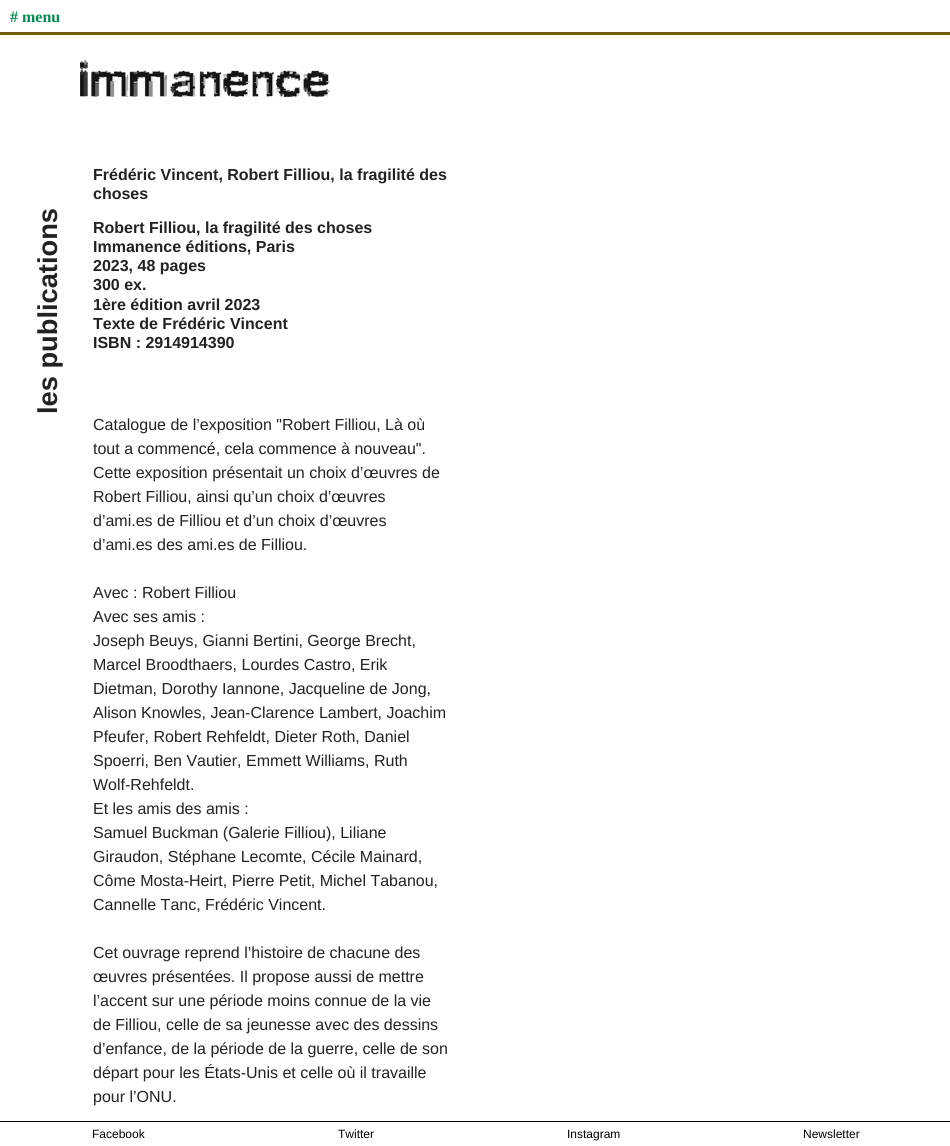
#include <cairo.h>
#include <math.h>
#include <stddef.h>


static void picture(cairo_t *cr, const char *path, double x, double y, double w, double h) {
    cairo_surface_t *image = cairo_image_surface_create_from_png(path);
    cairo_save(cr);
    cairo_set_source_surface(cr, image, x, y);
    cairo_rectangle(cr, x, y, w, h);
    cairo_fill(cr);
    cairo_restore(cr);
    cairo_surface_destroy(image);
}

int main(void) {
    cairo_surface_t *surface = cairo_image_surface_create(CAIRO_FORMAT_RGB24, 950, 1146);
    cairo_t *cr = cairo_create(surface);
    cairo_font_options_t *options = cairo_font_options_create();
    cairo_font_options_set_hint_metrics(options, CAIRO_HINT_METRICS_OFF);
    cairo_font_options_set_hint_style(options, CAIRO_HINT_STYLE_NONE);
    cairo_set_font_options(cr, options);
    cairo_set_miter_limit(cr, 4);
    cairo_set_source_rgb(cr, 1, 1, 1);
    cairo_paint(cr);
    cairo_set_source_rgb(cr, 0.447, 0.365, 0.016);
    cairo_rectangle(cr, 0, 32, 950, 3);
    cairo_fill(cr);
    cairo_select_font_face(cr, "Liberation Serif", CAIRO_FONT_SLANT_NORMAL, CAIRO_FONT_WEIGHT_BOLD);
    cairo_set_font_size(cr, 16);
    cairo_set_source_rgb(cr, 0.008, 0.549, 0.302);
    cairo_move_to(cr, 10, 22);
    cairo_show_text(cr, "# menu");
    picture(cr, "img1.png", 80, 60, 250, 37);
    cairo_select_font_face(cr, "Liberation Sans", CAIRO_FONT_SLANT_NORMAL, CAIRO_FONT_WEIGHT_BOLD);
    cairo_set_font_size(cr, 27.25);
    cairo_set_source_rgb(cr, 0.133, 0.133, 0.133);
    cairo_save(cr);
    cairo_translate(cr, 57, 414);
    cairo_rotate(cr, -90 * M_PI / 180);
    cairo_move_to(cr, 0, 0);
    cairo_show_text(cr, "les publications");
    cairo_restore(cr);
    cairo_set_font_size(cr, 16);
    cairo_move_to(cr, 93, 180);
    cairo_show_text(cr, "Frédéric Vincent, Robert Filliou, la fragilité des");
    cairo_move_to(cr, 93, 199);
    cairo_show_text(cr, "choses");
    cairo_move_to(cr, 93, 233);
    cairo_show_text(cr, "Robert Filliou, la fragilité des choses");
    cairo_move_to(cr, 93, 252);
    cairo_show_text(cr, "Immanence éditions, Paris");
    cairo_move_to(cr, 93, 271);
    cairo_show_text(cr, "2023, 48 pages");
    cairo_move_to(cr, 93, 290);
    cairo_show_text(cr, "300 ex.");
    cairo_move_to(cr, 93, 310);
    cairo_show_text(cr, "1ère édition avril 2023");
    cairo_move_to(cr, 93, 329);
    cairo_show_text(cr, "Texte de Frédéric Vincent");
    cairo_move_to(cr, 93, 348);
    cairo_show_text(cr, "ISBN : 2914914390");
    cairo_select_font_face(cr, "Liberation Sans", CAIRO_FONT_SLANT_NORMAL, CAIRO_FONT_WEIGHT_NORMAL);
    cairo_move_to(cr, 93, 430);
    cairo_show_text(cr, "Catalogue de l’exposition \"Robert Filliou, Là où");
    cairo_move_to(cr, 93, 454);
    cairo_show_text(cr, "tout a commencé, cela commence à nouveau\".");
    cairo_move_to(cr, 93, 478);
    cairo_show_text(cr, "Cette exposition présentait un choix d’œuvres de");
    cairo_move_to(cr, 93, 502);
    cairo_show_text(cr, "Robert Filliou, ainsi qu’un choix d’œuvres");
    cairo_move_to(cr, 93, 526);
    cairo_show_text(cr, "d’ami.es de Filliou et d’un choix d’œuvres");
    cairo_move_to(cr, 93, 550);
    cairo_show_text(cr, "d’ami.es des ami.es de Filliou.");
    cairo_move_to(cr, 93, 598);
    cairo_show_text(cr, "Avec : Robert Filliou");
    cairo_move_to(cr, 93, 622);
    cairo_show_text(cr, "Avec ses amis :");
    cairo_move_to(cr, 93, 646);
    cairo_show_text(cr, "Joseph Beuys, Gianni Bertini, George Brecht,");
    cairo_move_to(cr, 93, 670);
    cairo_show_text(cr, "Marcel Broodthaers, Lourdes Castro, Erik");
    cairo_move_to(cr, 93, 694);
    cairo_show_text(cr, "Dietman, Dorothy Iannone, Jacqueline de Jong,");
    cairo_move_to(cr, 93, 718);
    cairo_show_text(cr, "Alison Knowles, Jean-Clarence Lambert, Joachim");
    cairo_move_to(cr, 93, 742);
    cairo_show_text(cr, "Pfeufer, Robert Rehfeldt, Dieter Roth, Daniel");
    cairo_move_to(cr, 93, 766);
    cairo_show_text(cr, "Spoerri, Ben Vautier, Emmett Williams, Ruth");
    cairo_move_to(cr, 93, 790);
    cairo_show_text(cr, "Wolf-Rehfeldt.");
    cairo_move_to(cr, 93, 814);
    cairo_show_text(cr, "Et les amis des amis :");
    cairo_move_to(cr, 93, 838);
    cairo_show_text(cr, "Samuel Buckman (Galerie Filliou), Liliane");
    cairo_move_to(cr, 93, 862);
    cairo_show_text(cr, "Giraudon, Stéphane Lecomte, Cécile Mainard,");
    cairo_move_to(cr, 93, 886);
    cairo_show_text(cr, "Côme Mosta-Heirt, Pierre Petit, Michel Tabanou,");
    cairo_move_to(cr, 93, 910);
    cairo_show_text(cr, "Cannelle Tanc, Frédéric Vincent.");
    cairo_move_to(cr, 93, 958);
    cairo_show_text(cr, "Cet ouvrage reprend l’histoire de chacune des");
    cairo_move_to(cr, 93, 982);
    cairo_show_text(cr, "œuvres présentées. Il propose aussi de mettre");
    cairo_move_to(cr, 93, 1006);
    cairo_show_text(cr, "l’accent sur une période moins connue de la vie");
    cairo_move_to(cr, 93, 1030);
    cairo_show_text(cr, "de Filliou, celle de sa jeunesse avec des dessins");
    cairo_move_to(cr, 93, 1054);
    cairo_show_text(cr, "d’enfance, de la période de la guerre, celle de son");
    cairo_move_to(cr, 93, 1078);
    cairo_show_text(cr, "départ pour les États-Unis et celle où il travaille");
    cairo_move_to(cr, 93, 1102);
    cairo_show_text(cr, "pour l’ONU.");
    cairo_set_source_rgb(cr, 0, 0, 0);
    cairo_rectangle(cr, 0, 1121, 950, 1);
    cairo_fill(cr);
    cairo_set_font_size(cr, 12);
    cairo_move_to(cr, 92, 1138);
    cairo_show_text(cr, "Facebook");
    cairo_move_to(cr, 338, 1138);
    cairo_show_text(cr, "Twitter");
    cairo_move_to(cr, 567, 1138);
    cairo_show_text(cr, "Instagram");
    cairo_move_to(cr, 803, 1138);
    cairo_show_text(cr, "Newsletter");
    cairo_surface_write_to_png(surface, "page.png");
    cairo_font_options_destroy(options);
    cairo_destroy(cr);
    cairo_surface_destroy(surface);
    return 0;
}
